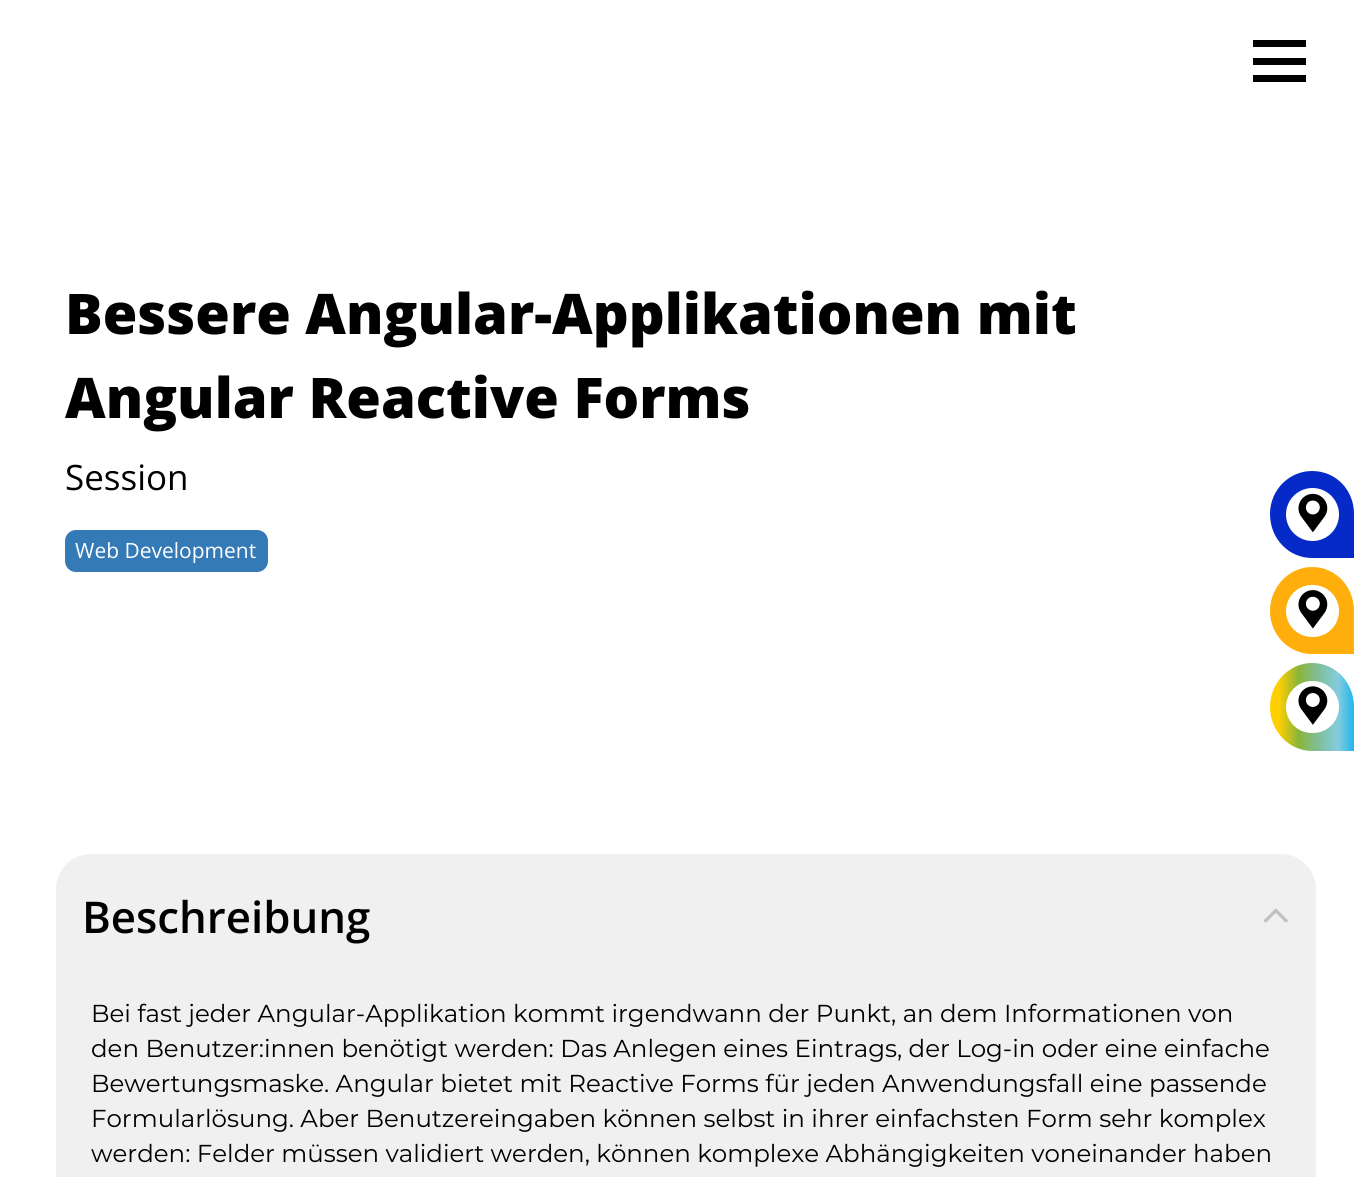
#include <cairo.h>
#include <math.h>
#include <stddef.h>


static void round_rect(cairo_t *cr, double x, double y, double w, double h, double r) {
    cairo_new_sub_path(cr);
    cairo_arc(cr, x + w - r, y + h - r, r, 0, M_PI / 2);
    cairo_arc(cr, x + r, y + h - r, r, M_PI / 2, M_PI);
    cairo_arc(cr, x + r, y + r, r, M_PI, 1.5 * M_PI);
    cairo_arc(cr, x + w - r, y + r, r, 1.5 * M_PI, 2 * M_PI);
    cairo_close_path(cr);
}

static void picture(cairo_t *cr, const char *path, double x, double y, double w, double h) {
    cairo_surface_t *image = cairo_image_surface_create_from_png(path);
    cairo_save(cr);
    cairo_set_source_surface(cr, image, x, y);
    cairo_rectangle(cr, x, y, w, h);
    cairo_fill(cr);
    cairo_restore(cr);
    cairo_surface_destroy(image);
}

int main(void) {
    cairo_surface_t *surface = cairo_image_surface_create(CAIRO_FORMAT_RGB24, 1372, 1177);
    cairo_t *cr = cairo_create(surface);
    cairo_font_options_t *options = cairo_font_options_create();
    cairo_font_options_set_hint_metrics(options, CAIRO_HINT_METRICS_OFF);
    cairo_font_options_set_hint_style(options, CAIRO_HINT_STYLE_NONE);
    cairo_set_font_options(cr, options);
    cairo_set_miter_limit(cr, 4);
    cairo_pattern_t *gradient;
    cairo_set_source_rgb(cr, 1, 1, 1);
    cairo_paint(cr);
    cairo_set_source_rgb(cr, 0, 0, 0);
    cairo_rectangle(cr, 1253, 75, 53, 7);
    cairo_fill(cr);
    cairo_rectangle(cr, 1253, 58, 53, 7);
    cairo_fill(cr);
    cairo_rectangle(cr, 1253, 40, 53, 7);
    cairo_fill(cr);
    cairo_select_font_face(cr, "Open Sans ExtraBold", CAIRO_FONT_SLANT_NORMAL, CAIRO_FONT_WEIGHT_NORMAL);
    cairo_set_font_size(cr, 56);
    cairo_move_to(cr, 65, 334);
    cairo_show_text(cr, "Bessere Angular-Applikationen mit");
    cairo_move_to(cr, 65, 418);
    cairo_show_text(cr, "Angular Reactive Forms");
    cairo_select_font_face(cr, "Open Sans", CAIRO_FONT_SLANT_NORMAL, CAIRO_FONT_WEIGHT_NORMAL);
    cairo_set_font_size(cr, 35);
    cairo_move_to(cr, 65, 490);
    cairo_show_text(cr, "Session");
    cairo_set_source_rgb(cr, 0.2, 0.478, 0.718);
    round_rect(cr, 65, 530, 203, 42, 11);
    cairo_fill(cr);
    cairo_set_font_size(cr, 21);
    cairo_set_source_rgb(cr, 1, 1, 1);
    cairo_move_to(cr, 75, 558);
    cairo_show_text(cr, "Web Development");
    cairo_set_source_rgb(cr, 0.941, 0.941, 0.941);
    round_rect(cr, 56, 854, 1260, 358, 35);
    cairo_fill(cr);
    cairo_select_font_face(cr, "Open Sans SemiBold", CAIRO_FONT_SLANT_NORMAL, CAIRO_FONT_WEIGHT_NORMAL);
    cairo_set_font_size(cr, 43.75);
    cairo_set_source_rgb(cr, 0, 0, 0);
    cairo_move_to(cr, 82, 933);
    cairo_show_text(cr, "Beschreibung");
    picture(cr, "img1.png", 1263, 908, 25, 15);
    cairo_select_font_face(cr, "Montserrat", CAIRO_FONT_SLANT_NORMAL, CAIRO_FONT_WEIGHT_NORMAL);
    cairo_set_font_size(cr, 24.5);
    cairo_move_to(cr, 91, 1022);
    cairo_show_text(cr, "Bei fast jeder Angular-Applikation kommt irgendwann der Punkt, an dem Informationen von");
    cairo_move_to(cr, 91, 1057);
    cairo_show_text(cr, "den Benutzer:innen benötigt werden: Das Anlegen eines Eintrags, der Log-in oder eine einfache");
    cairo_move_to(cr, 91, 1092);
    cairo_show_text(cr, "Bewertungsmaske. Angular bietet mit Reactive Forms für jeden Anwendungsfall eine passende");
    cairo_move_to(cr, 91, 1127);
    cairo_show_text(cr, "Formularlösung. Aber Benutzereingaben können selbst in ihrer einfachsten Form sehr komplex");
    cairo_move_to(cr, 91, 1162);
    cairo_show_text(cr, "werden: Felder müssen validiert werden, können komplexe Abhängigkeiten voneinander haben");
    cairo_set_source_rgb(cr, 0.027, 0.165, 0.784);
    cairo_new_path(cr);
    cairo_move_to(cr, 1312, 471);
    cairo_curve_to(cr, 1336, 471, 1354, 490, 1354, 514);
    cairo_line_to(cr, 1354, 558);
    cairo_line_to(cr, 1312, 558);
    cairo_curve_to(cr, 1289, 558, 1270, 539, 1270, 514);
    cairo_curve_to(cr, 1270, 490, 1289, 471, 1312, 471);
    cairo_close_path(cr);
    cairo_fill(cr);
    cairo_set_source_rgb(cr, 1, 1, 1);
    cairo_arc(cr, 1312.5, 514.5, 26.5, 0, 2 * M_PI);
    cairo_fill(cr);
    picture(cr, "img2.png", 1298, 493, 30, 40);
    cairo_set_source_rgb(cr, 1, 0.682, 0.043);
    cairo_new_path(cr);
    cairo_move_to(cr, 1312, 567);
    cairo_curve_to(cr, 1336, 567, 1354, 587, 1354, 611);
    cairo_line_to(cr, 1354, 654);
    cairo_line_to(cr, 1312, 654);
    cairo_curve_to(cr, 1289, 654, 1270, 635, 1270, 611);
    cairo_curve_to(cr, 1270, 587, 1289, 567, 1312, 567);
    cairo_close_path(cr);
    cairo_fill(cr);
    cairo_set_source_rgb(cr, 1, 1, 1);
    round_rect(cr, 1286, 585, 53, 52, 26);
    cairo_fill(cr);
    picture(cr, "img3.png", 1298, 590, 30, 39);
    gradient = cairo_pattern_create_linear(1271, 707, 1355, 707);
    cairo_pattern_add_color_stop_rgba(gradient, 0.09, 1, 0.812, 0, 1);
    cairo_pattern_add_color_stop_rgba(gradient, 0.33, 0.541, 0.71, 0.227, 1);
    cairo_pattern_add_color_stop_rgba(gradient, 0.57, 0.502, 0.749, 0.612, 1);
    cairo_pattern_add_color_stop_rgba(gradient, 0.8, 0.518, 0.8, 0.871, 1);
    cairo_pattern_add_color_stop_rgba(gradient, 1, 0.094, 0.706, 0.933, 1);
    cairo_set_source(cr, gradient);
    cairo_pattern_destroy(gradient);
    cairo_new_path(cr);
    cairo_move_to(cr, 1312, 663);
    cairo_curve_to(cr, 1336, 663, 1354, 683, 1354, 707);
    cairo_line_to(cr, 1354, 751);
    cairo_line_to(cr, 1312, 751);
    cairo_curve_to(cr, 1289, 751, 1270, 731, 1270, 707);
    cairo_curve_to(cr, 1270, 683, 1289, 663, 1312, 663);
    cairo_close_path(cr);
    cairo_fill(cr);
    cairo_set_source_rgb(cr, 1, 1, 1);
    round_rect(cr, 1286, 681, 53, 52, 26);
    cairo_fill(cr);
    picture(cr, "img4.png", 1298, 686, 30, 39);
    cairo_surface_write_to_png(surface, "page.png");
    cairo_font_options_destroy(options);
    cairo_destroy(cr);
    cairo_surface_destroy(surface);
    return 0;
}
